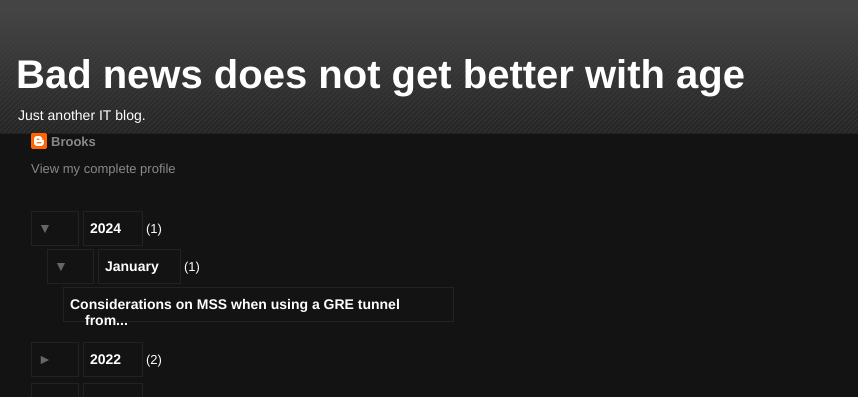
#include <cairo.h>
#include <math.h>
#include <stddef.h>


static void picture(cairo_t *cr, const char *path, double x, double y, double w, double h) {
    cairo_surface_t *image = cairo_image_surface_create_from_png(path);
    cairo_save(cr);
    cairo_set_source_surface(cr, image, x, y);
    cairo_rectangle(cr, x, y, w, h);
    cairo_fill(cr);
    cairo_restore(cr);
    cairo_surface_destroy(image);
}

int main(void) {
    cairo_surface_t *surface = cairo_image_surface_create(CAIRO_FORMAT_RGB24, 858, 397);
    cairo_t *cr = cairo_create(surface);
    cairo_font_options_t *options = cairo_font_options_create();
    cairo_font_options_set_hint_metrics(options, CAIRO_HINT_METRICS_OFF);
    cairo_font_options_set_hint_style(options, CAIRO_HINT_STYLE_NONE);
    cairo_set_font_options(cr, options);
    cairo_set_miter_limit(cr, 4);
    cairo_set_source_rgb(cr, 0, 0, 0);
    cairo_paint(cr);
    picture(cr, "img1.png", 0, 13, 858, 120);
    picture(cr, "img2.png", 0, 0, 858, 133);
    cairo_select_font_face(cr, "Liberation Sans", CAIRO_FONT_SLANT_NORMAL, CAIRO_FONT_WEIGHT_BOLD);
    cairo_set_font_size(cr, 40);
    cairo_set_source_rgb(cr, 1, 1, 1);
    cairo_move_to(cr, 16, 88);
    cairo_show_text(cr, "Bad news does not get better with age");
    cairo_select_font_face(cr, "Liberation Sans", CAIRO_FONT_SLANT_NORMAL, CAIRO_FONT_WEIGHT_NORMAL);
    cairo_set_font_size(cr, 14);
    cairo_move_to(cr, 18, 120);
    cairo_show_text(cr, "Just another IT blog.");
    cairo_set_source_rgb(cr, 0.078, 0.078, 0.078);
    cairo_rectangle(cr, 0, 134, 858, 263);
    cairo_fill(cr);
    cairo_set_source_rgb(cr, 0.133, 0.133, 0.133);
    cairo_rectangle(cr, 0, 133, 858, 1);
    cairo_fill(cr);
    picture(cr, "img3.png", 31, 133, 16, 16);
    cairo_select_font_face(cr, "Liberation Sans", CAIRO_FONT_SLANT_NORMAL, CAIRO_FONT_WEIGHT_BOLD);
    cairo_set_font_size(cr, 13);
    cairo_set_source_rgb(cr, 0.533, 0.533, 0.533);
    cairo_move_to(cr, 51, 146);
    cairo_show_text(cr, "Brooks");
    cairo_select_font_face(cr, "Liberation Sans", CAIRO_FONT_SLANT_NORMAL, CAIRO_FONT_WEIGHT_NORMAL);
    cairo_move_to(cr, 31, 173);
    cairo_show_text(cr, "View my complete profile");
    cairo_rectangle(cr, 31.5, 211.5, 47, 34);
    cairo_set_source_rgb(cr, 0.133, 0.133, 0.133);
    cairo_set_line_width(cr, 1);
    cairo_stroke(cr);
    cairo_select_font_face(cr, "Liberation Sans", CAIRO_FONT_SLANT_NORMAL, CAIRO_FONT_WEIGHT_BOLD);
    cairo_set_font_size(cr, 14);
    cairo_set_source_rgb(cr, 0.4, 0.4, 0.4);
    cairo_move_to(cr, 38, 233);
    cairo_show_text(cr, "▼");
    cairo_rectangle(cr, 83.5, 211.5, 59, 34);
    cairo_set_source_rgb(cr, 0.133, 0.133, 0.133);
    cairo_stroke(cr);
    cairo_set_source_rgb(cr, 1, 1, 1);
    cairo_move_to(cr, 90, 233);
    cairo_show_text(cr, "2024");
    cairo_select_font_face(cr, "Liberation Sans", CAIRO_FONT_SLANT_NORMAL, CAIRO_FONT_WEIGHT_NORMAL);
    cairo_set_font_size(cr, 13);
    cairo_move_to(cr, 146, 233);
    cairo_show_text(cr, "(1)");
    cairo_rectangle(cr, 47.5, 249.5, 46, 34);
    cairo_set_source_rgb(cr, 0.133, 0.133, 0.133);
    cairo_stroke(cr);
    cairo_select_font_face(cr, "Liberation Sans", CAIRO_FONT_SLANT_NORMAL, CAIRO_FONT_WEIGHT_BOLD);
    cairo_set_font_size(cr, 14);
    cairo_set_source_rgb(cr, 0.4, 0.4, 0.4);
    cairo_move_to(cr, 54, 271);
    cairo_show_text(cr, "▼");
    cairo_rectangle(cr, 98.5, 249.5, 82, 34);
    cairo_set_source_rgb(cr, 0.133, 0.133, 0.133);
    cairo_stroke(cr);
    cairo_set_source_rgb(cr, 1, 1, 1);
    cairo_move_to(cr, 105, 271);
    cairo_show_text(cr, "January");
    cairo_select_font_face(cr, "Liberation Sans", CAIRO_FONT_SLANT_NORMAL, CAIRO_FONT_WEIGHT_NORMAL);
    cairo_set_font_size(cr, 13);
    cairo_move_to(cr, 184, 271);
    cairo_show_text(cr, "(1)");
    cairo_rectangle(cr, 63.5, 287.5, 390, 34);
    cairo_set_source_rgb(cr, 0.133, 0.133, 0.133);
    cairo_stroke(cr);
    cairo_select_font_face(cr, "Liberation Sans", CAIRO_FONT_SLANT_NORMAL, CAIRO_FONT_WEIGHT_BOLD);
    cairo_set_font_size(cr, 14);
    cairo_set_source_rgb(cr, 1, 1, 1);
    cairo_move_to(cr, 70, 309);
    cairo_show_text(cr, "Considerations on MSS when using a GRE tunnel");
    cairo_move_to(cr, 85, 325);
    cairo_show_text(cr, "from...");
    cairo_rectangle(cr, 31.5, 342.5, 47, 34);
    cairo_set_source_rgb(cr, 0.133, 0.133, 0.133);
    cairo_stroke(cr);
    cairo_set_source_rgb(cr, 0.4, 0.4, 0.4);
    cairo_move_to(cr, 38, 364);
    cairo_show_text(cr, "►");
    cairo_rectangle(cr, 83.5, 342.5, 59, 34);
    cairo_set_source_rgb(cr, 0.133, 0.133, 0.133);
    cairo_stroke(cr);
    cairo_set_source_rgb(cr, 1, 1, 1);
    cairo_move_to(cr, 90, 364);
    cairo_show_text(cr, "2022");
    cairo_select_font_face(cr, "Liberation Sans", CAIRO_FONT_SLANT_NORMAL, CAIRO_FONT_WEIGHT_NORMAL);
    cairo_set_font_size(cr, 13);
    cairo_move_to(cr, 146, 364);
    cairo_show_text(cr, "(2)");
    cairo_rectangle(cr, 31.5, 383.5, 47, 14);
    cairo_set_source_rgb(cr, 0.133, 0.133, 0.133);
    cairo_stroke(cr);
    cairo_rectangle(cr, 83.5, 383.5, 59, 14);
    cairo_stroke(cr);
    cairo_surface_write_to_png(surface, "page.png");
    cairo_font_options_destroy(options);
    cairo_destroy(cr);
    cairo_surface_destroy(surface);
    return 0;
}
